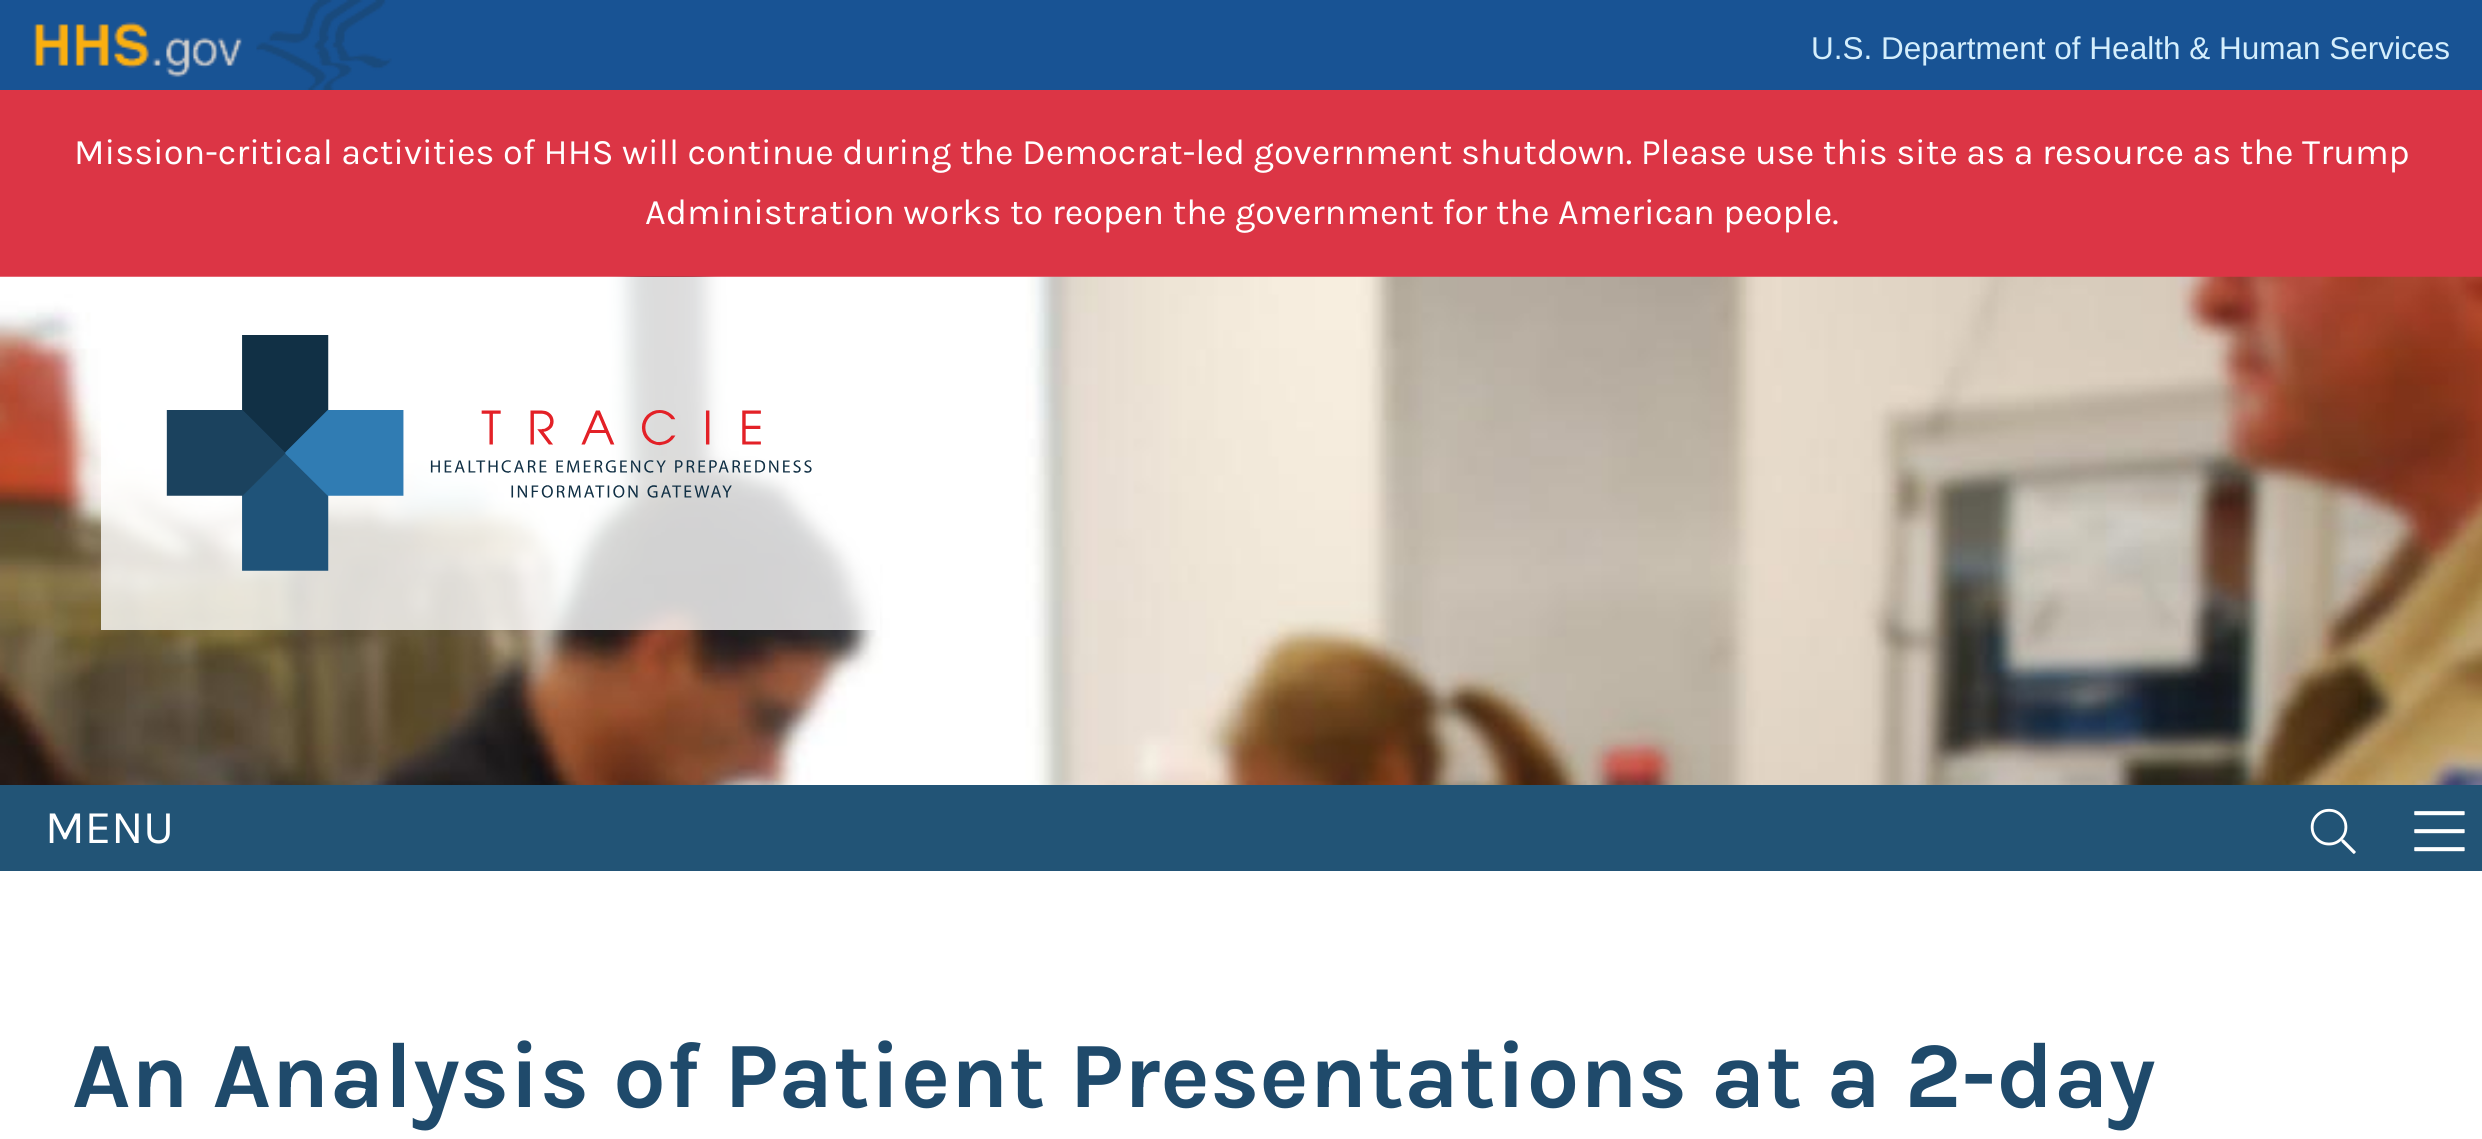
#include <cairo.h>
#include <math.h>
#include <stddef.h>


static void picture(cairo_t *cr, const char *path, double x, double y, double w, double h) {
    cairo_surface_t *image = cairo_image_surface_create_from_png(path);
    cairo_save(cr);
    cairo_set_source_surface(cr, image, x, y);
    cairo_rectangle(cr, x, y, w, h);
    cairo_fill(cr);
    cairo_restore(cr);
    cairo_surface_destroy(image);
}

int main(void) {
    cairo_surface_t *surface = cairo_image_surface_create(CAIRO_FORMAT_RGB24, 2482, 1139);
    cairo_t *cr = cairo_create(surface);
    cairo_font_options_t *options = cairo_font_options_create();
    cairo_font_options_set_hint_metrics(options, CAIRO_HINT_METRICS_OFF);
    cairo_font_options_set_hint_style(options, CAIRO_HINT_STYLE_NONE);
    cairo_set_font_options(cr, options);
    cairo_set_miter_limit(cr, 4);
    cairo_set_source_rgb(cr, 1, 1, 1);
    cairo_paint(cr);
    cairo_set_source_rgb(cr, 0.094, 0.325, 0.58);
    cairo_rectangle(cr, 0, 0, 2482, 90);
    cairo_fill(cr);
    picture(cr, "img1.png", 33, 0, 359, 90);
    cairo_select_font_face(cr, "Liberation Sans", CAIRO_FONT_SLANT_NORMAL, CAIRO_FONT_WEIGHT_NORMAL);
    cairo_set_font_size(cr, 31.5);
    cairo_set_source_rgb(cr, 0.831, 0.933, 0.988);
    cairo_move_to(cr, 1811, 59);
    cairo_show_text(cr, "U.S. Department of Health & Human Services");
    cairo_set_source_rgb(cr, 0.863, 0.208, 0.271);
    cairo_rectangle(cr, 0, 90, 2482, 187);
    cairo_fill(cr);
    cairo_select_font_face(cr, "Karla", CAIRO_FONT_SLANT_NORMAL, CAIRO_FONT_WEIGHT_NORMAL);
    cairo_set_font_size(cr, 36);
    cairo_set_source_rgb(cr, 1, 1, 1);
    cairo_move_to(cr, 74, 164);
    cairo_show_text(cr, "Mission-critical activities of HHS will continue during the Democrat-led government shutdown. Please use this site as a resource as the Trump");
    cairo_move_to(cr, 645, 224);
    cairo_show_text(cr, "Administration works to reopen the government for the American people.");
    picture(cr, "img2.png", 0, 276, 2482, 509);
    cairo_set_source_rgba(cr, 1, 1, 1, 0.8);
    cairo_rectangle(cr, 101, 277, 779, 353);
    cairo_fill(cr);
    picture(cr, "img3.png", 166, 335, 646, 236);
    cairo_set_source_rgb(cr, 0.133, 0.329, 0.463);
    cairo_rectangle(cr, 0, 785, 2482, 86);
    cairo_fill(cr);
    cairo_set_font_size(cr, 47);
    cairo_set_source_rgb(cr, 1, 1, 1);
    cairo_move_to(cr, 45, 843);
    cairo_show_text(cr, "MENU");
    picture(cr, "img4.png", 2310, 808, 46, 46);
    picture(cr, "img5.png", 2414, 811, 51, 41);
    cairo_select_font_face(cr, "Karla", CAIRO_FONT_SLANT_NORMAL, CAIRO_FONT_WEIGHT_BOLD);
    cairo_set_font_size(cr, 93.6);
    cairo_set_source_rgb(cr, 0.122, 0.29, 0.42);
    cairo_move_to(cr, 72, 1107);
    cairo_show_text(cr, "An Analysis of Patient Presentations at a 2-day");
    cairo_surface_write_to_png(surface, "page.png");
    cairo_font_options_destroy(options);
    cairo_destroy(cr);
    cairo_surface_destroy(surface);
    return 0;
}
